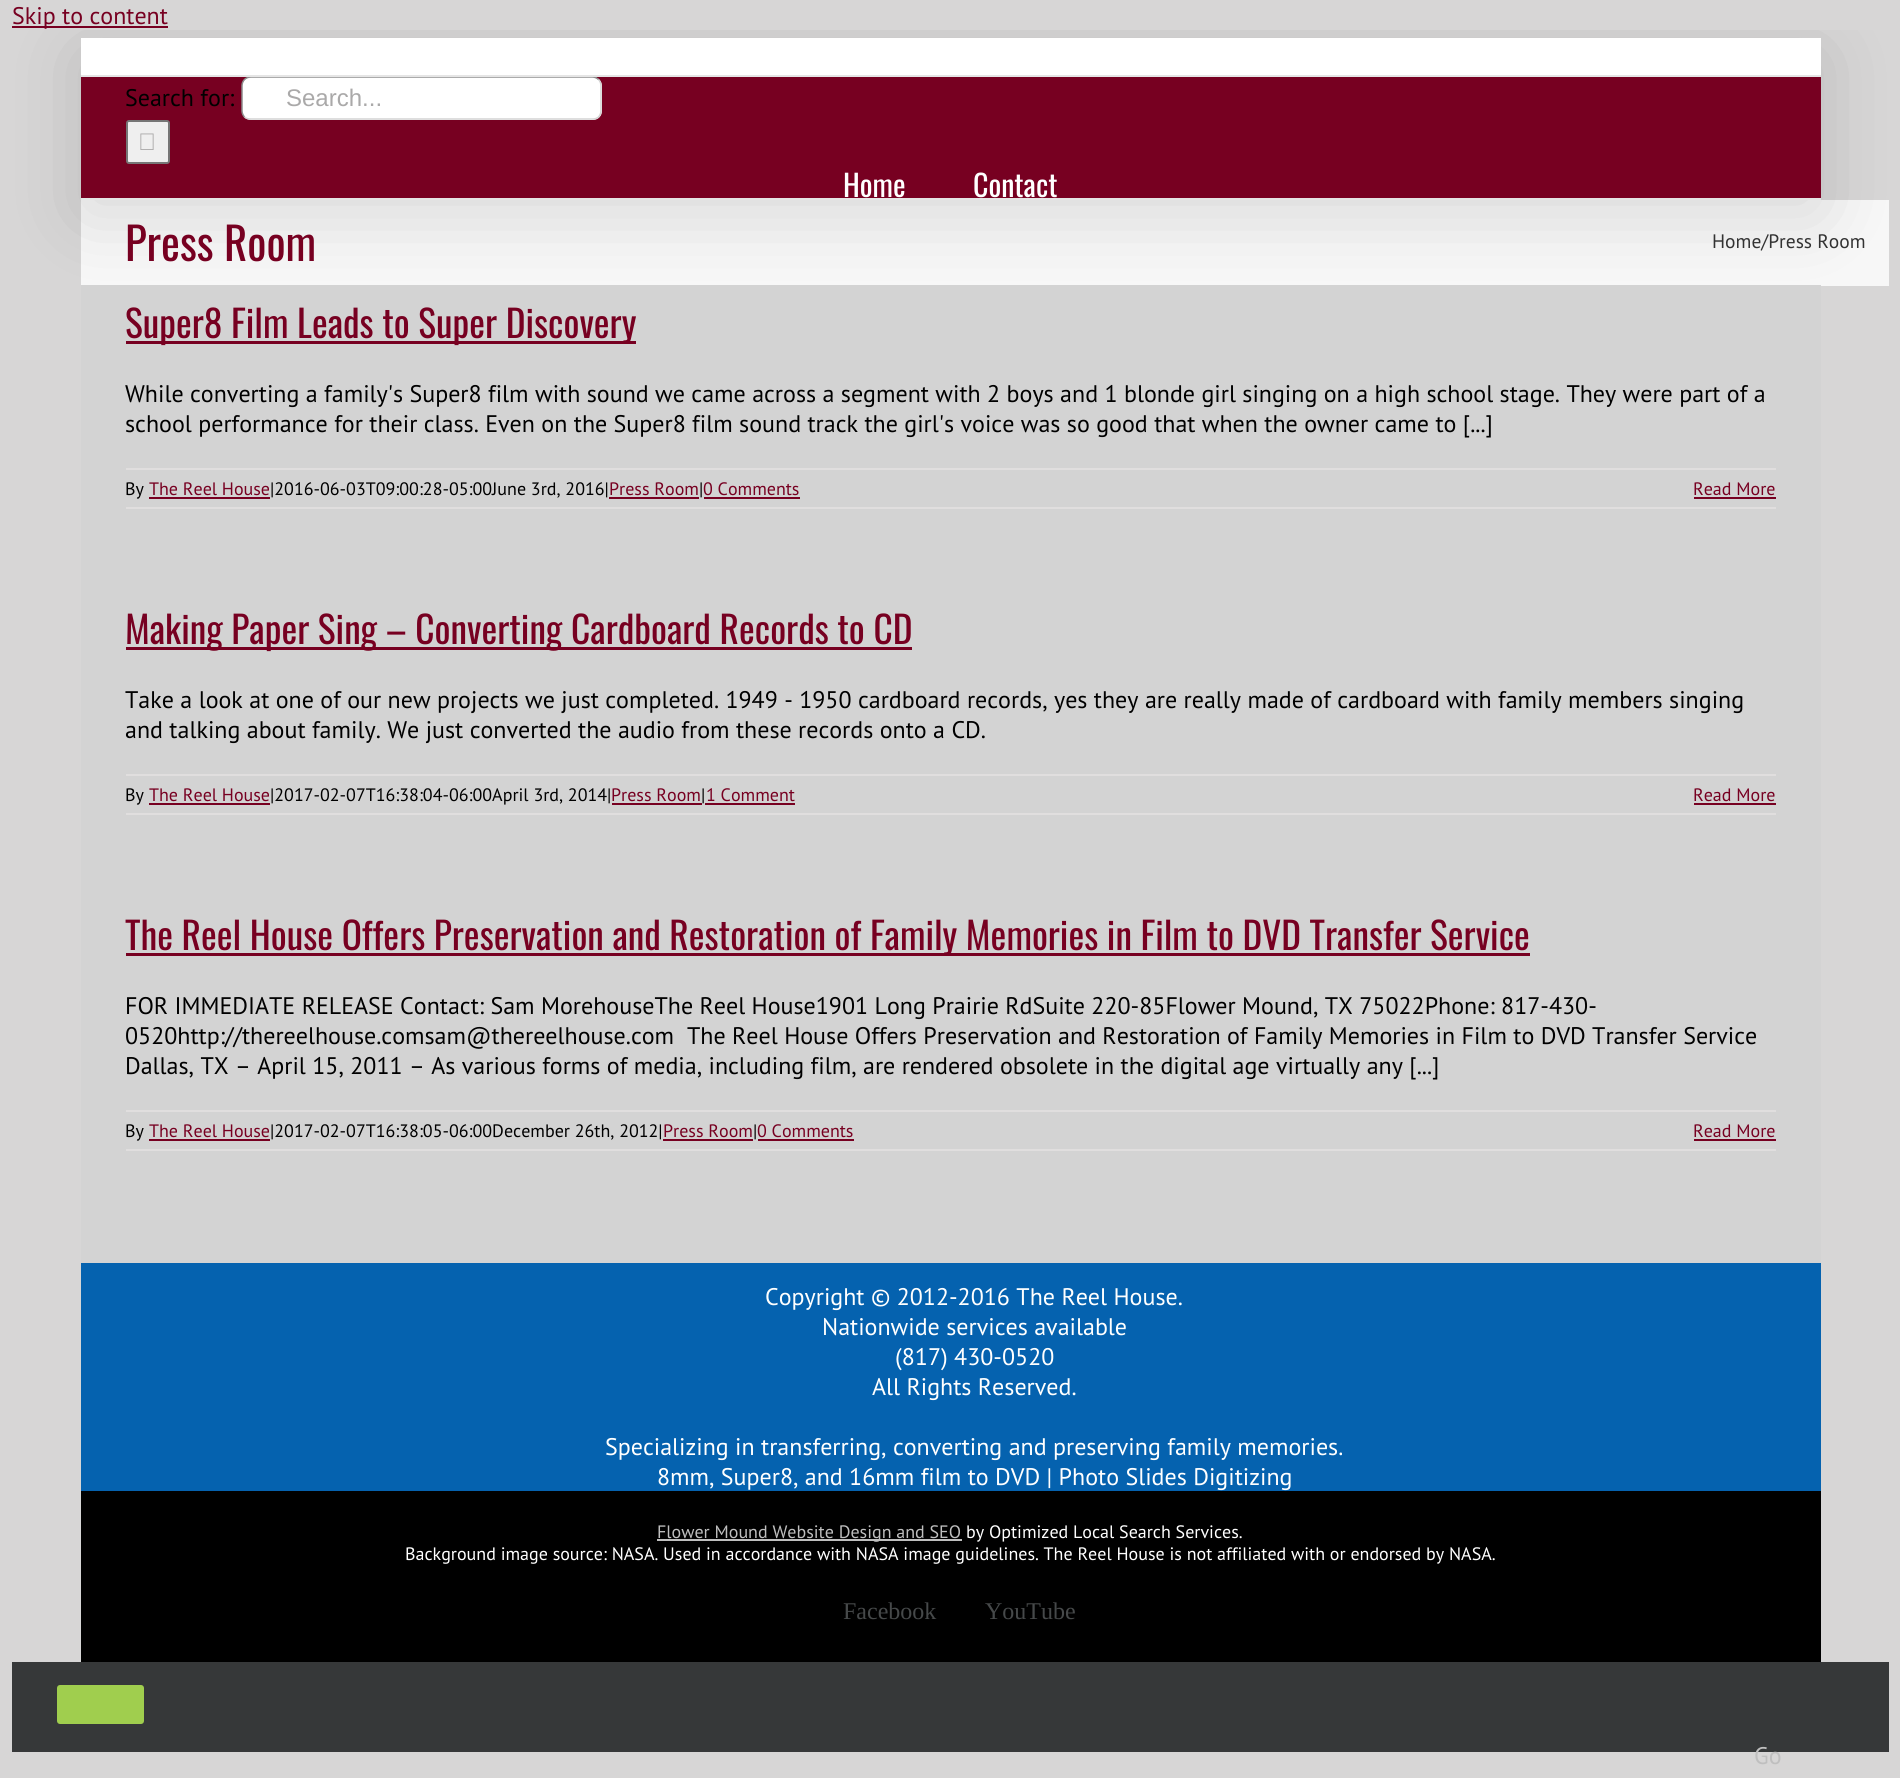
#include <cairo.h>
#include <math.h>
#include <stddef.h>


static void round_rect(cairo_t *cr, double x, double y, double w, double h, double r) {
    cairo_new_sub_path(cr);
    cairo_arc(cr, x + w - r, y + h - r, r, 0, M_PI / 2);
    cairo_arc(cr, x + r, y + h - r, r, M_PI / 2, M_PI);
    cairo_arc(cr, x + r, y + r, r, M_PI, 1.5 * M_PI);
    cairo_arc(cr, x + w - r, y + r, r, 1.5 * M_PI, 2 * M_PI);
    cairo_close_path(cr);
}

static void shadow(cairo_t *cr, double x, double y, double w, double h, double r, double blur, double alpha) {
    cairo_push_group_with_content(cr, CAIRO_CONTENT_ALPHA);
    cairo_set_operator(cr, CAIRO_OPERATOR_SOURCE);
    for (int i = 15; i >= -15 && fmin(w, h) + blur * i / 3 > 0; i -= 2) {
        double e = blur * i / 6;
        cairo_set_source_rgba(cr, 0, 0, 0, alpha * erfc((i - 1) / 8.5) / 2);
        round_rect(cr, x - e, y - e, w + 2 * e, h + 2 * e, fmax(0, fmin(r + e + blur * .6, fmin(w, h) / 2 + e)));
        cairo_fill(cr);
    }
    cairo_pattern_t *soft = cairo_pop_group(cr);
    cairo_mask(cr, soft);
    cairo_pattern_destroy(soft);
}

static void picture(cairo_t *cr, const char *path, double x, double y, double w, double h) {
    cairo_surface_t *image = cairo_image_surface_create_from_png(path);
    cairo_save(cr);
    cairo_set_source_surface(cr, image, x, y);
    cairo_rectangle(cr, x, y, w, h);
    cairo_fill(cr);
    cairo_restore(cr);
    cairo_surface_destroy(image);
}

int main(void) {
    cairo_surface_t *surface = cairo_image_surface_create(CAIRO_FORMAT_RGB24, 1900, 1778);
    cairo_t *cr = cairo_create(surface);
    cairo_font_options_t *options = cairo_font_options_create();
    cairo_font_options_set_hint_metrics(options, CAIRO_HINT_METRICS_OFF);
    cairo_font_options_set_hint_style(options, CAIRO_HINT_STYLE_NONE);
    cairo_set_font_options(cr, options);
    cairo_set_miter_limit(cr, 4);
    cairo_set_source_rgb(cr, 0.843, 0.839, 0.839);
    cairo_paint(cr);
    cairo_set_source_rgb(cr, 0.467, 0, 0.129);
    cairo_rectangle(cr, 12, 26, 156, 2);
    cairo_fill(cr);
    cairo_select_font_face(cr, "PT Sans", CAIRO_FONT_SLANT_NORMAL, CAIRO_FONT_WEIGHT_NORMAL);
    cairo_set_font_size(cr, 24);
    cairo_move_to(cr, 12, 24);
    cairo_show_text(cr, "Skip to content");
    cairo_set_source_rgb(cr, 0.965, 0.965, 0.965);
    cairo_rectangle(cr, 81, 200, 1808, 86);
    cairo_fill(cr);
    cairo_set_source_rgb(cr, 0.827, 0.827, 0.827);
    cairo_rectangle(cr, 81, 285, 1740, 978);
    cairo_fill(cr);
    cairo_save(cr);
    cairo_rectangle(cr, 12, 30, 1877, 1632);
    cairo_clip(cr);
    cairo_set_source_rgb(cr, 0, 0, 0);
    shadow(cr, 84, 56, 1734, 156, 0, 37.5, 0.14);
    cairo_restore(cr);
    cairo_set_source_rgb(cr, 1, 1, 1);
    cairo_rectangle(cr, 81, 38, 1740, 37);
    cairo_fill(cr);
    cairo_set_source_rgb(cr, 0.898, 0.898, 0.898);
    cairo_rectangle(cr, 81, 75, 1740, 2);
    cairo_fill(cr);
    cairo_set_source_rgb(cr, 0.467, 0, 0.129);
    cairo_rectangle(cr, 81, 77, 1740, 121);
    cairo_fill(cr);
    cairo_set_source_rgb(cr, 0.898, 0.898, 0.898);
    cairo_rectangle(cr, 81, 198, 1740, 2);
    cairo_fill(cr);
    cairo_set_source_rgb(cr, 0, 0, 0);
    cairo_move_to(cr, 125, 106);
    cairo_show_text(cr, "Search for:");
    cairo_set_source_rgb(cr, 1, 1, 1);
    round_rect(cr, 242, 77, 360, 43, 9);
    cairo_fill(cr);
    cairo_new_path(cr);
    cairo_move_to(cr, 598.5, 79.5);
    cairo_curve_to(cr, 600, 81, 601, 83.5, 601, 85.5);
    cairo_line_to(cr, 601, 111);
    cairo_curve_to(cr, 601, 113, 600, 115.5, 598.5, 117);
    cairo_curve_to(cr, 597, 118.5, 594.5, 119, 592.5, 119);
    cairo_line_to(cr, 250.5, 119);
    cairo_curve_to(cr, 248.5, 119, 246, 118.5, 244.5, 117);
    cairo_set_source_rgb(cr, 0.824, 0.824, 0.824);
    cairo_set_line_width(cr, 1.5);
    cairo_stroke(cr);
    cairo_save(cr);
    cairo_rectangle(cr, 126, 77, 1650, 121);
    cairo_clip(cr);
    cairo_new_path(cr);
    cairo_move_to(cr, 244.5, 117);
    cairo_curve_to(cr, 243, 115.5, 242, 113, 242, 111);
    cairo_line_to(cr, 242, 85.5);
    cairo_curve_to(cr, 242, 83.5, 243, 81, 244.5, 79.5);
    cairo_curve_to(cr, 246, 78, 248.5, 77, 250.5, 77);
    cairo_line_to(cr, 592.5, 77);
    cairo_curve_to(cr, 594.5, 77, 597, 78, 598.5, 79.5);
    cairo_set_source_rgb(cr, 0.549, 0.549, 0.549);
    cairo_stroke(cr);
    cairo_restore(cr);
    cairo_select_font_face(cr, "Liberation Sans", CAIRO_FONT_SLANT_NORMAL, CAIRO_FONT_WEIGHT_NORMAL);
    cairo_set_source_rgb(cr, 0.667, 0.663, 0.663);
    cairo_move_to(cr, 286, 106);
    cairo_show_text(cr, "Search...");
    cairo_set_source_rgb(cr, 0.937, 0.937, 0.937);
    round_rect(cr, 127, 121, 42, 42, 2);
    cairo_fill_preserve(cr);
    cairo_set_source_rgb(cr, 0.463, 0.463, 0.463);
    cairo_set_line_width(cr, 2);
    cairo_stroke(cr);
    picture(cr, "img1.png", 140, 133, 14, 17);
    cairo_select_font_face(cr, "Oswald", CAIRO_FONT_SLANT_NORMAL, CAIRO_FONT_WEIGHT_NORMAL);
    cairo_set_font_size(cr, 30);
    cairo_set_source_rgb(cr, 1, 1, 1);
    cairo_move_to(cr, 843, 197);
    cairo_show_text(cr, "Home");
    cairo_move_to(cr, 973, 197);
    cairo_show_text(cr, "Contact");
    cairo_set_font_size(cr, 45);
    cairo_set_source_rgb(cr, 0.467, 0, 0.129);
    cairo_move_to(cr, 125, 261);
    cairo_show_text(cr, "Press Room");
    cairo_select_font_face(cr, "PT Sans", CAIRO_FONT_SLANT_NORMAL, CAIRO_FONT_WEIGHT_NORMAL);
    cairo_set_font_size(cr, 19.5);
    cairo_set_source_rgb(cr, 0.2, 0.2, 0.2);
    cairo_move_to(cr, 1712, 248);
    cairo_show_text(cr, "Home/Press Room");
    cairo_set_source_rgb(cr, 0.467, 0, 0.129);
    cairo_rectangle(cr, 126, 341, 510, 3);
    cairo_fill(cr);
    cairo_select_font_face(cr, "Oswald", CAIRO_FONT_SLANT_NORMAL, CAIRO_FONT_WEIGHT_NORMAL);
    cairo_set_font_size(cr, 37.5);
    cairo_move_to(cr, 125, 338);
    cairo_show_text(cr, "Super8 Film Leads to Super Discovery");
    cairo_select_font_face(cr, "PT Sans", CAIRO_FONT_SLANT_NORMAL, CAIRO_FONT_WEIGHT_NORMAL);
    cairo_set_font_size(cr, 24);
    cairo_set_source_rgb(cr, 0, 0, 0);
    cairo_move_to(cr, 125, 402);
    cairo_show_text(cr, "While converting a family's Super8 film with sound we came across a segment with 2 boys and 1 blonde girl singing on a high school stage. They were part of a");
    cairo_move_to(cr, 125, 432);
    cairo_show_text(cr, "school performance for their class. Even on the Super8 film sound track the girl's voice was so good that when the owner came to [...]");
    cairo_set_source_rgb(cr, 0.878, 0.871, 0.871);
    cairo_rectangle(cr, 126, 468, 1650, 2);
    cairo_fill(cr);
    cairo_rectangle(cr, 126, 507, 1650, 2);
    cairo_fill(cr);
    cairo_set_font_size(cr, 18);
    cairo_set_source_rgb(cr, 0, 0, 0);
    cairo_move_to(cr, 125, 495);
    cairo_show_text(cr, "By");
    cairo_set_source_rgb(cr, 0.467, 0, 0.129);
    cairo_move_to(cr, 149, 495);
    cairo_show_text(cr, "The Reel House");
    cairo_rectangle(cr, 149, 497, 121, 2);
    cairo_fill(cr);
    cairo_set_source_rgb(cr, 0, 0, 0);
    cairo_move_to(cr, 270, 495);
    cairo_show_text(cr, "|2016-06-03T09:00:28-05:00June 3rd, 2016|");
    cairo_set_source_rgb(cr, 0.467, 0, 0.129);
    cairo_move_to(cr, 609, 495);
    cairo_show_text(cr, "Press Room");
    cairo_rectangle(cr, 609, 497, 90, 2);
    cairo_fill(cr);
    cairo_set_source_rgb(cr, 0, 0, 0);
    cairo_move_to(cr, 699, 495);
    cairo_show_text(cr, "|");
    cairo_set_source_rgb(cr, 0.467, 0, 0.129);
    cairo_move_to(cr, 703, 495);
    cairo_show_text(cr, "0 Comments");
    cairo_rectangle(cr, 704, 497, 96, 2);
    cairo_fill(cr);
    cairo_move_to(cr, 1693, 495);
    cairo_show_text(cr, "Read More");
    cairo_rectangle(cr, 1694, 497, 82, 2);
    cairo_fill(cr);
    cairo_rectangle(cr, 126, 647, 786, 3);
    cairo_fill(cr);
    cairo_select_font_face(cr, "Oswald", CAIRO_FONT_SLANT_NORMAL, CAIRO_FONT_WEIGHT_NORMAL);
    cairo_set_font_size(cr, 37.5);
    cairo_move_to(cr, 125, 644);
    cairo_show_text(cr, "Making Paper Sing – Converting Cardboard Records to CD");
    cairo_select_font_face(cr, "PT Sans", CAIRO_FONT_SLANT_NORMAL, CAIRO_FONT_WEIGHT_NORMAL);
    cairo_set_font_size(cr, 24);
    cairo_set_source_rgb(cr, 0, 0, 0);
    cairo_move_to(cr, 125, 708);
    cairo_show_text(cr, "Take a look at one of our new projects we just completed. 1949 - 1950 cardboard records, yes they are really made of cardboard with family members singing");
    cairo_move_to(cr, 125, 738);
    cairo_show_text(cr, "and talking about family. We just converted the audio from these records onto a CD.");
    cairo_set_source_rgb(cr, 0.878, 0.871, 0.871);
    cairo_rectangle(cr, 126, 774, 1650, 2);
    cairo_fill(cr);
    cairo_rectangle(cr, 126, 813, 1650, 2);
    cairo_fill(cr);
    cairo_set_font_size(cr, 18);
    cairo_set_source_rgb(cr, 0, 0, 0);
    cairo_move_to(cr, 125, 801);
    cairo_show_text(cr, "By");
    cairo_set_source_rgb(cr, 0.467, 0, 0.129);
    cairo_move_to(cr, 149, 801);
    cairo_show_text(cr, "The Reel House");
    cairo_rectangle(cr, 149, 803, 121, 2);
    cairo_fill(cr);
    cairo_set_source_rgb(cr, 0, 0, 0);
    cairo_move_to(cr, 270, 801);
    cairo_show_text(cr, "|2017-02-07T16:38:04-06:00April 3rd, 2014|");
    cairo_set_source_rgb(cr, 0.467, 0, 0.129);
    cairo_move_to(cr, 611, 801);
    cairo_show_text(cr, "Press Room");
    cairo_rectangle(cr, 612, 803, 90, 2);
    cairo_fill(cr);
    cairo_set_source_rgb(cr, 0, 0, 0);
    cairo_move_to(cr, 701, 801);
    cairo_show_text(cr, "|");
    cairo_set_source_rgb(cr, 0.467, 0, 0.129);
    cairo_move_to(cr, 706, 801);
    cairo_show_text(cr, "1 Comment");
    cairo_rectangle(cr, 705, 803, 90, 2);
    cairo_fill(cr);
    cairo_move_to(cr, 1693, 801);
    cairo_show_text(cr, "Read More");
    cairo_rectangle(cr, 1694, 803, 82, 2);
    cairo_fill(cr);
    cairo_rectangle(cr, 126, 953, 1404, 3);
    cairo_fill(cr);
    cairo_select_font_face(cr, "Oswald", CAIRO_FONT_SLANT_NORMAL, CAIRO_FONT_WEIGHT_NORMAL);
    cairo_set_font_size(cr, 37.5);
    cairo_move_to(cr, 125, 950);
    cairo_show_text(cr, "The Reel House Offers Preservation and Restoration of Family Memories in Film to DVD Transfer Service");
    cairo_select_font_face(cr, "PT Sans", CAIRO_FONT_SLANT_NORMAL, CAIRO_FONT_WEIGHT_NORMAL);
    cairo_set_font_size(cr, 24);
    cairo_set_source_rgb(cr, 0, 0, 0);
    cairo_move_to(cr, 125, 1014);
    cairo_show_text(cr, "FOR IMMEDIATE RELEASE Contact: Sam MorehouseThe Reel House1901 Long Prairie RdSuite 220-85Flower Mound, TX 75022Phone: 817-430-");
    cairo_move_to(cr, 125, 1044);
    cairo_show_text(cr, "0520http://thereelhouse.comsam@thereelhouse.com");
    cairo_move_to(cr, 687, 1044);
    cairo_show_text(cr, "The Reel House Offers Preservation and Restoration of Family Memories in Film to DVD Transfer Service");
    cairo_move_to(cr, 125, 1074);
    cairo_show_text(cr, "Dallas, TX – April 15, 2011 – As various forms of media, including film, are rendered obsolete in the digital age virtually any [...]");
    cairo_set_source_rgb(cr, 0.878, 0.871, 0.871);
    cairo_rectangle(cr, 126, 1110, 1650, 2);
    cairo_fill(cr);
    cairo_rectangle(cr, 126, 1149, 1650, 2);
    cairo_fill(cr);
    cairo_set_font_size(cr, 18);
    cairo_set_source_rgb(cr, 0, 0, 0);
    cairo_move_to(cr, 125, 1137);
    cairo_show_text(cr, "By");
    cairo_set_source_rgb(cr, 0.467, 0, 0.129);
    cairo_move_to(cr, 149, 1137);
    cairo_show_text(cr, "The Reel House");
    cairo_rectangle(cr, 149, 1139, 121, 2);
    cairo_fill(cr);
    cairo_set_source_rgb(cr, 0, 0, 0);
    cairo_move_to(cr, 270, 1137);
    cairo_show_text(cr, "|2017-02-07T16:38:05-06:00December 26th, 2012|");
    cairo_set_source_rgb(cr, 0.467, 0, 0.129);
    cairo_move_to(cr, 663, 1137);
    cairo_show_text(cr, "Press Room");
    cairo_rectangle(cr, 663, 1139, 90, 2);
    cairo_fill(cr);
    cairo_set_source_rgb(cr, 0, 0, 0);
    cairo_move_to(cr, 753, 1137);
    cairo_show_text(cr, "|");
    cairo_set_source_rgb(cr, 0.467, 0, 0.129);
    cairo_move_to(cr, 757, 1137);
    cairo_show_text(cr, "0 Comments");
    cairo_rectangle(cr, 758, 1139, 96, 2);
    cairo_fill(cr);
    cairo_move_to(cr, 1693, 1137);
    cairo_show_text(cr, "Read More");
    cairo_rectangle(cr, 1694, 1139, 82, 2);
    cairo_fill(cr);
    cairo_set_source_rgb(cr, 0.02, 0.384, 0.686);
    cairo_rectangle(cr, 81, 1263, 1740, 228);
    cairo_fill(cr);
    cairo_set_font_size(cr, 24);
    cairo_set_source_rgb(cr, 1, 1, 1);
    cairo_move_to(cr, 765, 1305);
    cairo_show_text(cr, "Copyright © 2012-2016 The Reel House.");
    cairo_move_to(cr, 822, 1335);
    cairo_show_text(cr, "Nationwide services available");
    cairo_move_to(cr, 895, 1365);
    cairo_show_text(cr, "(817) 430-0520");
    cairo_move_to(cr, 872, 1395);
    cairo_show_text(cr, "All Rights Reserved.");
    cairo_move_to(cr, 605, 1455);
    cairo_show_text(cr, "Specializing in transferring, converting and preserving family memories.");
    cairo_move_to(cr, 657, 1485);
    cairo_show_text(cr, "8mm, Super8, and 16mm film to DVD | Photo Slides Digitizing");
    cairo_set_source_rgb(cr, 0, 0, 0);
    cairo_rectangle(cr, 81, 1491, 1740, 171);
    cairo_fill(cr);
    cairo_set_source_rgb(cr, 0.749, 0.749, 0.749);
    cairo_rectangle(cr, 657, 1539, 305, 2);
    cairo_fill(cr);
    cairo_set_font_size(cr, 18);
    cairo_move_to(cr, 657, 1538);
    cairo_show_text(cr, "Flower Mound Website Design and SEO");
    cairo_set_source_rgb(cr, 1, 1, 1);
    cairo_move_to(cr, 966, 1538);
    cairo_show_text(cr, "by Optimized Local Search Services.");
    cairo_move_to(cr, 405, 1560);
    cairo_show_text(cr, "Background image source: NASA. Used in accordance with NASA image guidelines. The Reel House is not affiliated with or endorsed by NASA.");
    cairo_select_font_face(cr, "Liberation Serif", CAIRO_FONT_SLANT_NORMAL, CAIRO_FONT_WEIGHT_NORMAL);
    cairo_set_font_size(cr, 24);
    cairo_set_source_rgb(cr, 0.275, 0.286, 0.29);
    cairo_move_to(cr, 843, 1619);
    cairo_show_text(cr, "Facebook");
    cairo_move_to(cr, 985, 1619);
    cairo_show_text(cr, "YouTube");
    cairo_set_source_rgb(cr, 0.212, 0.22, 0.224);
    cairo_rectangle(cr, 12, 1662, 1877, 90);
    cairo_fill(cr);
    cairo_set_source_rgb(cr, 0.627, 0.808, 0.306);
    round_rect(cr, 57, 1685, 87, 39, 3);
    cairo_fill(cr);
    cairo_select_font_face(cr, "PT Sans", CAIRO_FONT_SLANT_NORMAL, CAIRO_FONT_WEIGHT_NORMAL);
    cairo_set_source_rgb(cr, 0.749, 0.749, 0.749);
    cairo_move_to(cr, 1754, 1764);
    cairo_show_text(cr, "Go");
    cairo_surface_write_to_png(surface, "page.png");
    cairo_font_options_destroy(options);
    cairo_destroy(cr);
    cairo_surface_destroy(surface);
    return 0;
}
